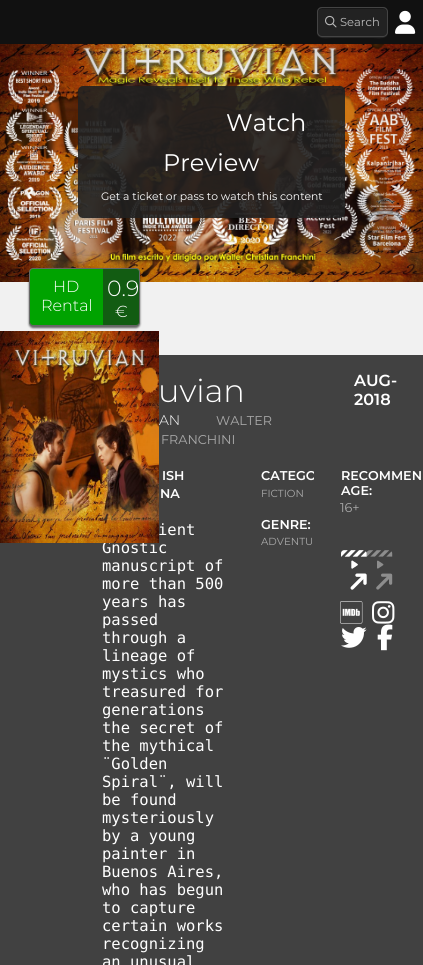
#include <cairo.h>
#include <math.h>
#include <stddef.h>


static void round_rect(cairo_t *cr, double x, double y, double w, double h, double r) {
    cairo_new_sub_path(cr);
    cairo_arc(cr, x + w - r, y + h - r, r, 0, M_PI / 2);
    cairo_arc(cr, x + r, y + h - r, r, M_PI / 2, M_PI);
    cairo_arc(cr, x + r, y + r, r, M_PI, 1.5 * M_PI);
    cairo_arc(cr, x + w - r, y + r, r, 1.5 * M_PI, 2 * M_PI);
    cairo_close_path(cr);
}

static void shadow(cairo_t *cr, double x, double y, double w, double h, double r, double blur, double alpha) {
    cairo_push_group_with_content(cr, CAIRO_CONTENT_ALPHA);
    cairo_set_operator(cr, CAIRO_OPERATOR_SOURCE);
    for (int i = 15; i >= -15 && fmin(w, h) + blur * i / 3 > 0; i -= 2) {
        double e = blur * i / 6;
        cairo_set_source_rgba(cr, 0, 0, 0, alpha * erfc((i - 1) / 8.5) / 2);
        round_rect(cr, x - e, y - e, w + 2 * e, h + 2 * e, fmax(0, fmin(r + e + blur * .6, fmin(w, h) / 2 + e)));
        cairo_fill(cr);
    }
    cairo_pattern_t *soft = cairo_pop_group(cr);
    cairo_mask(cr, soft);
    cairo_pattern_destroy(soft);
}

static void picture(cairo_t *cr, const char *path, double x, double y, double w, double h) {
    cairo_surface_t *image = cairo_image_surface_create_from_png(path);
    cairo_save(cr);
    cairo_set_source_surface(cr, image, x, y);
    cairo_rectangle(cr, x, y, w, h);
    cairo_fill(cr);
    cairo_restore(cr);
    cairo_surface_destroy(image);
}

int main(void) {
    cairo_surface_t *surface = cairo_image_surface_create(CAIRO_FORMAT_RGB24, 423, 965);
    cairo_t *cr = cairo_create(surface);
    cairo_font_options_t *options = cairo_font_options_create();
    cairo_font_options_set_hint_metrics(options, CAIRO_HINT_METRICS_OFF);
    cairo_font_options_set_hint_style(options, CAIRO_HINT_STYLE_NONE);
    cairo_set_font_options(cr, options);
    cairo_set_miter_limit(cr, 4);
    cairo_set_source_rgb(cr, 0.945, 0.945, 0.945);
    cairo_paint(cr);
    cairo_set_source_rgb(cr, 0.067, 0.067, 0.067);
    cairo_rectangle(cr, 0, 0, 423, 44);
    cairo_fill(cr);
    cairo_set_source_rgb(cr, 0.149, 0.149, 0.149);
    cairo_new_path(cr);
    cairo_move_to(cr, 317, 32);
    cairo_curve_to(cr, 317, 40, 326, 38, 332, 38);
    cairo_line_to(cr, 373, 38);
    cairo_curve_to(cr, 379, 38, 388, 40, 388, 32);
    cairo_curve_to(cr, 388, 35, 386, 37, 383, 37);
    cairo_line_to(cr, 322, 37);
    cairo_curve_to(cr, 319, 37, 317, 35, 317, 32);
    cairo_close_path(cr);
    cairo_fill(cr);
    cairo_set_source_rgb(cr, 0.133, 0.133, 0.133);
    round_rect(cr, 317, 7, 71, 30, 5);
    cairo_fill(cr);
    cairo_set_source_rgb(cr, 0.094, 0.094, 0.094);
    cairo_new_path(cr);
    cairo_move_to(cr, 322, 9);
    cairo_line_to(cr, 383, 9);
    cairo_curve_to(cr, 385, 9, 387, 11, 387, 13);
    cairo_curve_to(cr, 387, 6, 378, 8, 373, 8);
    cairo_line_to(cr, 332, 8);
    cairo_curve_to(cr, 327, 8, 318, 6, 318, 13);
    cairo_curve_to(cr, 318, 11, 320, 9, 322, 9);
    cairo_close_path(cr);
    cairo_fill(cr);
    round_rect(cr, 317.5, 7.5, 70, 29, 4.5);
    cairo_set_source_rgb(cr, 0.267, 0.267, 0.267);
    cairo_set_line_width(cr, 1);
    cairo_stroke(cr);
    picture(cr, "img1.png", 325, 15, 12, 13);
    cairo_select_font_face(cr, "Montserrat", CAIRO_FONT_SLANT_NORMAL, CAIRO_FONT_WEIGHT_NORMAL);
    cairo_set_font_size(cr, 11.5);
    cairo_set_source_rgb(cr, 0.733, 0.733, 0.733);
    cairo_move_to(cr, 340, 26);
    cairo_show_text(cr, "Search");
    picture(cr, "img2.png", 395, 10, 21, 24);
    picture(cr, "img3.png", 0, 44, 423, 238);
    cairo_set_source_rgba(cr, 0.129, 0.129, 0.129, 0.9);
    round_rect(cr, 78, 86, 267, 132, 5);
    cairo_fill(cr);
    cairo_set_font_size(cr, 24);
    cairo_set_source_rgb(cr, 1, 1, 1);
    cairo_move_to(cr, 226, 131);
    cairo_show_text(cr, "Watch");
    cairo_move_to(cr, 163, 171);
    cairo_show_text(cr, "Preview");
    cairo_set_font_size(cr, 10.8);
    cairo_move_to(cr, 101, 200);
    cairo_show_text(cr, "Get a ticket or pass to watch this content");
    cairo_set_source_rgb(cr, 0, 0, 0);
    shadow(cr, 29, 270, 111, 58, 4, 1, 0.6);
    cairo_set_source_rgb(cr, 0, 0.639, 0);
    round_rect(cr, 29.5, 268.5, 110, 57, 3.5);
    cairo_fill_preserve(cr);
    cairo_set_source_rgb(cr, 0.4, 0.4, 0.4);
    cairo_stroke(cr);
    cairo_select_font_face(cr, "Montserrat Light", CAIRO_FONT_SLANT_NORMAL, CAIRO_FONT_WEIGHT_NORMAL);
    cairo_set_font_size(cr, 16);
    cairo_set_source_rgb(cr, 1, 1, 1);
    cairo_move_to(cr, 53, 292);
    cairo_show_text(cr, "HD");
    cairo_move_to(cr, 41, 311);
    cairo_show_text(cr, "Rental");
    cairo_set_source_rgba(cr, 0.133, 0.133, 0.133, 0.55);
    cairo_new_path(cr);
    cairo_move_to(cr, 103, 269);
    cairo_line_to(cr, 136, 269);
    cairo_curve_to(cr, 137.5, 269, 139, 270.5, 139, 272);
    cairo_line_to(cr, 139, 322);
    cairo_curve_to(cr, 139, 323.5, 137.5, 325, 136, 325);
    cairo_line_to(cr, 103, 325);
    cairo_close_path(cr);
    cairo_fill(cr);
    cairo_set_font_size(cr, 22);
    cairo_set_source_rgb(cr, 1, 1, 1);
    cairo_move_to(cr, 107, 296);
    cairo_show_text(cr, "0.9");
    cairo_set_font_size(cr, 16);
    cairo_move_to(cr, 115, 317);
    cairo_show_text(cr, "€");
    cairo_set_source_rgb(cr, 0.255, 0.255, 0.255);
    cairo_rectangle(cr, 0, 355, 423, 610);
    cairo_fill(cr);
    cairo_select_font_face(cr, "DejaVu Sans Mono", CAIRO_FONT_SLANT_NORMAL, CAIRO_FONT_WEIGHT_NORMAL);
    cairo_set_font_size(cr, 15.5);
    cairo_set_source_rgb(cr, 1, 1, 1);
    cairo_move_to(cr, 102, 553);
    cairo_show_text(cr, "Gnostic");
    picture(cr, "img4.png", 0, 331, 159, 212);
    cairo_select_font_face(cr, "Montserrat Light", CAIRO_FONT_SLANT_NORMAL, CAIRO_FONT_WEIGHT_NORMAL);
    cairo_set_font_size(cr, 32);
    cairo_move_to(cr, 158, 402);
    cairo_show_text(cr, "uvian");
    cairo_set_font_size(cr, 14);
    cairo_move_to(cr, 159, 425);
    cairo_show_text(cr, "AN");
    cairo_select_font_face(cr, "Montserrat", CAIRO_FONT_SLANT_NORMAL, CAIRO_FONT_WEIGHT_NORMAL);
    cairo_set_font_size(cr, 12.75);
    cairo_set_source_rgb(cr, 0.667, 0.667, 0.667);
    cairo_move_to(cr, 216, 425);
    cairo_show_text(cr, "WALTER");
    cairo_move_to(cr, 161, 444);
    cairo_show_text(cr, "FRANCHINI");
    cairo_select_font_face(cr, "Montserrat SemiBold", CAIRO_FONT_SLANT_NORMAL, CAIRO_FONT_WEIGHT_NORMAL);
    cairo_set_font_size(cr, 16);
    cairo_set_source_rgb(cr, 1, 1, 1);
    cairo_move_to(cr, 354, 386);
    cairo_show_text(cr, "AUG-");
    cairo_move_to(cr, 354, 405);
    cairo_show_text(cr, "2018");
    cairo_set_font_size(cr, 12.75);
    cairo_move_to(cr, 162, 480);
    cairo_show_text(cr, "ISH");
    cairo_move_to(cr, 160, 498);
    cairo_show_text(cr, "NA");
    cairo_select_font_face(cr, "DejaVu Sans Mono", CAIRO_FONT_SLANT_NORMAL, CAIRO_FONT_WEIGHT_NORMAL);
    cairo_set_font_size(cr, 15.5);
    cairo_move_to(cr, 158, 535);
    cairo_show_text(cr, "ient");
    cairo_move_to(cr, 102, 571);
    cairo_show_text(cr, "manuscript of");
    cairo_move_to(cr, 102, 589);
    cairo_show_text(cr, "more than 500");
    cairo_move_to(cr, 102, 607);
    cairo_show_text(cr, "years has");
    cairo_move_to(cr, 102, 625);
    cairo_show_text(cr, "passed");
    cairo_move_to(cr, 102, 643);
    cairo_show_text(cr, "through a");
    cairo_move_to(cr, 102, 661);
    cairo_show_text(cr, "lineage of");
    cairo_move_to(cr, 102, 679);
    cairo_show_text(cr, "mystics who");
    cairo_move_to(cr, 102, 697);
    cairo_show_text(cr, "treasured for");
    cairo_move_to(cr, 102, 715);
    cairo_show_text(cr, "generations");
    cairo_move_to(cr, 102, 733);
    cairo_show_text(cr, "the secret of");
    cairo_move_to(cr, 102, 751);
    cairo_show_text(cr, "the mythical");
    cairo_move_to(cr, 102, 769);
    cairo_show_text(cr, "¨Golden");
    cairo_move_to(cr, 102, 787);
    cairo_show_text(cr, "Spiral¨, will");
    cairo_move_to(cr, 102, 805);
    cairo_show_text(cr, "be found");
    cairo_move_to(cr, 102, 823);
    cairo_show_text(cr, "mysteriously");
    cairo_move_to(cr, 102, 841);
    cairo_show_text(cr, "by a young");
    cairo_move_to(cr, 102, 859);
    cairo_show_text(cr, "painter in");
    cairo_move_to(cr, 102, 877);
    cairo_show_text(cr, "Buenos Aires,");
    cairo_move_to(cr, 102, 895);
    cairo_show_text(cr, "who has begun");
    cairo_move_to(cr, 102, 913);
    cairo_show_text(cr, "to capture");
    cairo_move_to(cr, 102, 931);
    cairo_show_text(cr, "certain works");
    cairo_move_to(cr, 102, 949);
    cairo_show_text(cr, "recognizing");
    cairo_move_to(cr, 102, 967);
    cairo_show_text(cr, "an unusual");
    cairo_save(cr);
    cairo_rectangle(cr, 260, 467, 54, 97);
    cairo_clip(cr);
    cairo_select_font_face(cr, "Montserrat SemiBold", CAIRO_FONT_SLANT_NORMAL, CAIRO_FONT_WEIGHT_NORMAL);
    cairo_set_font_size(cr, 12.75);
    cairo_move_to(cr, 261, 480);
    cairo_show_text(cr, "CATEGO");
    cairo_restore(cr);
    cairo_select_font_face(cr, "Montserrat", CAIRO_FONT_SLANT_NORMAL, CAIRO_FONT_WEIGHT_NORMAL);
    cairo_set_font_size(cr, 10.25);
    cairo_set_source_rgb(cr, 0.667, 0.667, 0.667);
    cairo_move_to(cr, 261, 497);
    cairo_show_text(cr, "FICTION");
    cairo_select_font_face(cr, "Montserrat SemiBold", CAIRO_FONT_SLANT_NORMAL, CAIRO_FONT_WEIGHT_NORMAL);
    cairo_set_font_size(cr, 12.75);
    cairo_set_source_rgb(cr, 1, 1, 1);
    cairo_move_to(cr, 261, 529);
    cairo_show_text(cr, "GENRE:");
    cairo_select_font_face(cr, "Montserrat", CAIRO_FONT_SLANT_NORMAL, CAIRO_FONT_WEIGHT_NORMAL);
    cairo_set_font_size(cr, 10.25);
    cairo_set_source_rgb(cr, 0.667, 0.667, 0.667);
    cairo_move_to(cr, 261, 545);
    cairo_show_text(cr, "ADVENTU");
    cairo_select_font_face(cr, "Montserrat SemiBold", CAIRO_FONT_SLANT_NORMAL, CAIRO_FONT_WEIGHT_NORMAL);
    cairo_set_font_size(cr, 12.75);
    cairo_set_source_rgb(cr, 1, 1, 1);
    cairo_move_to(cr, 341, 480);
    cairo_show_text(cr, "RECOMMEN");
    cairo_move_to(cr, 341, 495);
    cairo_show_text(cr, "AGE:");
    cairo_select_font_face(cr, "Montserrat", CAIRO_FONT_SLANT_NORMAL, CAIRO_FONT_WEIGHT_NORMAL);
    cairo_set_source_rgb(cr, 0.667, 0.667, 0.667);
    cairo_move_to(cr, 340, 512);
    cairo_show_text(cr, "16+");
    picture(cr, "img5.png", 341, 550, 26, 19);
    picture(cr, "img6.png", 341, 550, 52, 19);
    picture(cr, "img7.png", 350, 573, 17, 17);
    picture(cr, "img8.png", 350, 573, 43, 17);
    picture(cr, "img9.png", 340, 601, 23, 23);
    picture(cr, "img10.png", 372, 601, 23, 23);
    picture(cr, "img11.png", 341, 627, 26, 21);
    picture(cr, "img12.png", 377, 624, 16, 27);
    cairo_surface_write_to_png(surface, "page.png");
    cairo_font_options_destroy(options);
    cairo_destroy(cr);
    cairo_surface_destroy(surface);
    return 0;
}
